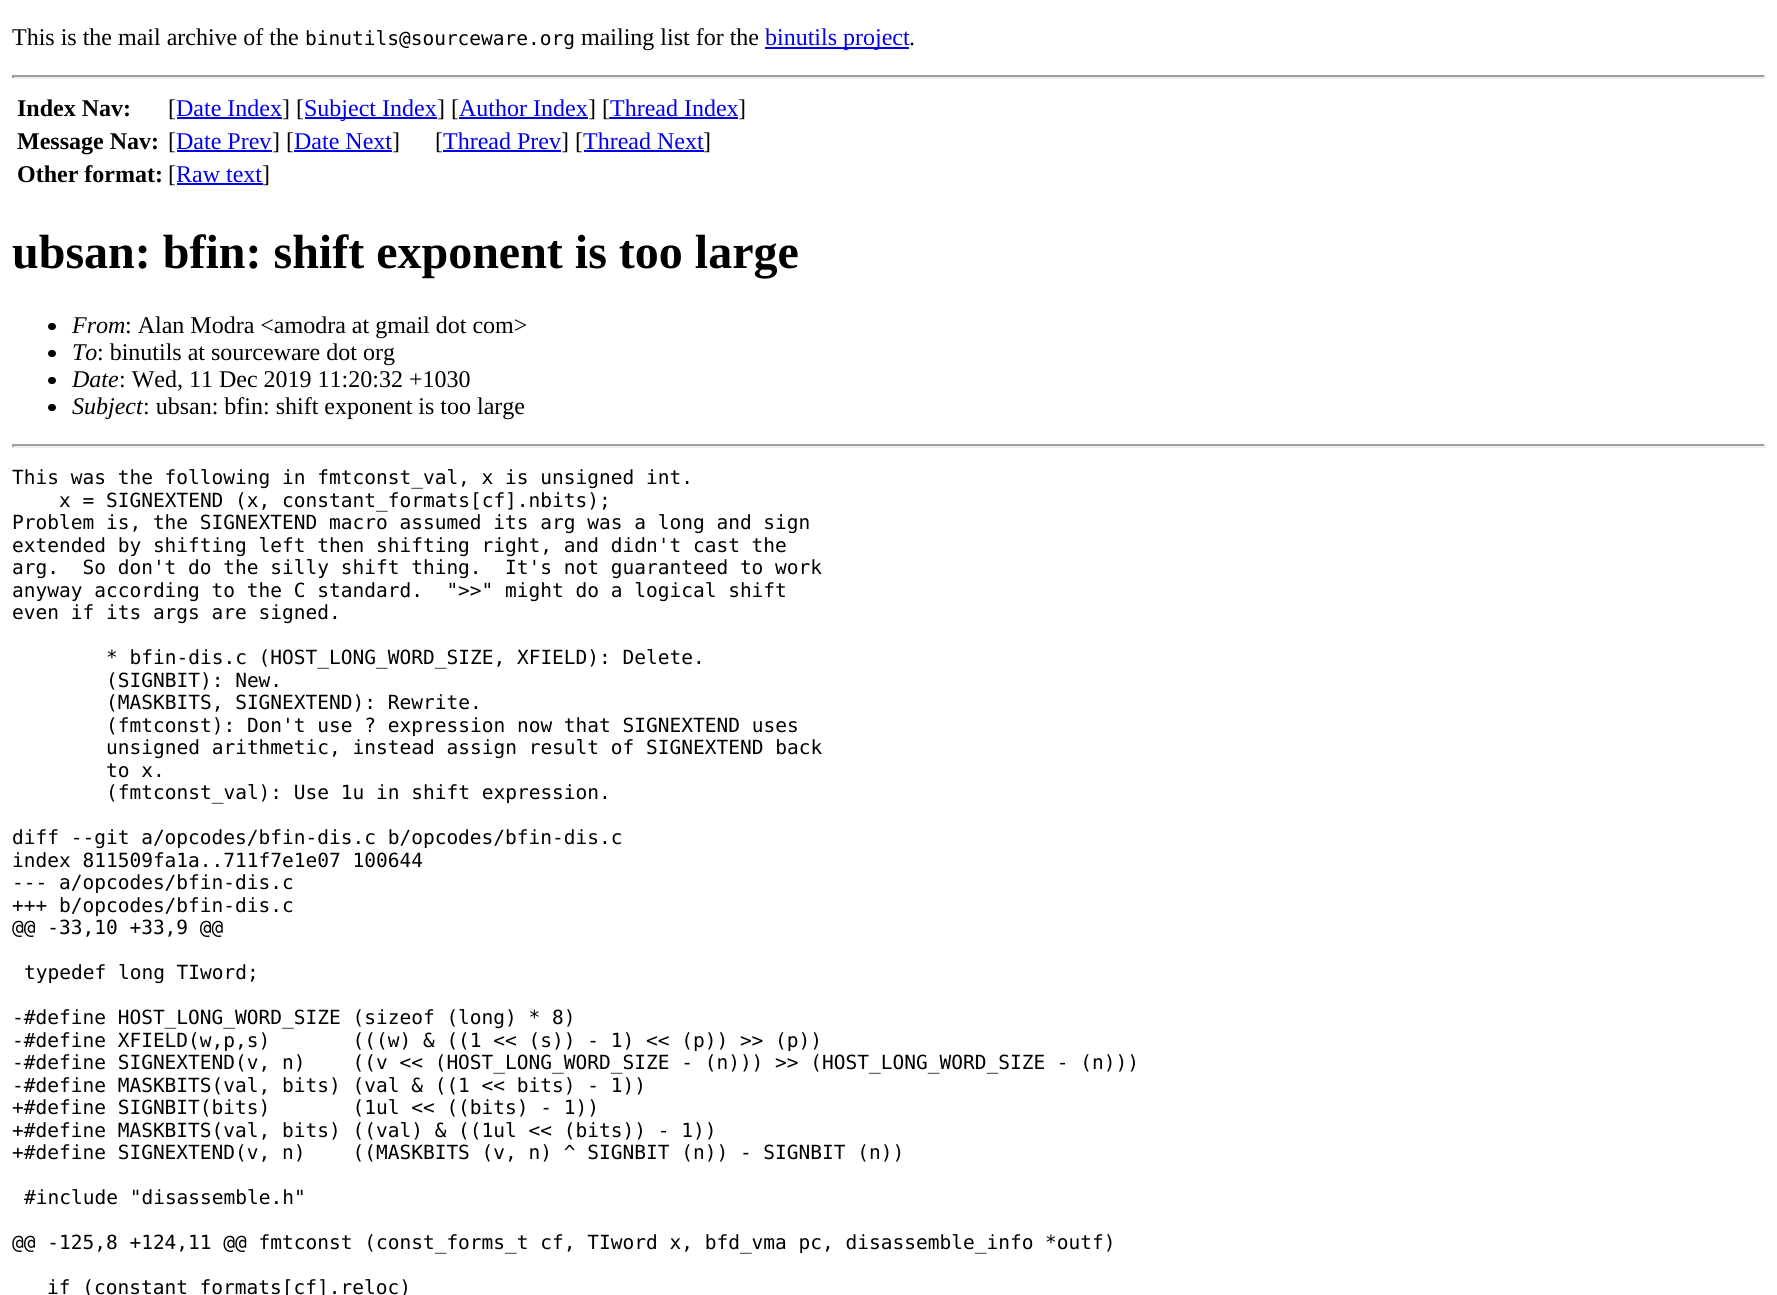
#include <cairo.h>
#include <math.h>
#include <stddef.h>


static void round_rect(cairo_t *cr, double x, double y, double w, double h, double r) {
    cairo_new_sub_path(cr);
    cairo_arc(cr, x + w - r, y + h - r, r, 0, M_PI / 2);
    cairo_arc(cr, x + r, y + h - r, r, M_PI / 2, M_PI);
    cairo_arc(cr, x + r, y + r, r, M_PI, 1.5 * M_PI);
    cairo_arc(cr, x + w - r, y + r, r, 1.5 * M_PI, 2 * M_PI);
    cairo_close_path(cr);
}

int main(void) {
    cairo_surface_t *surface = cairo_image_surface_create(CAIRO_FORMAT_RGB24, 1777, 1295);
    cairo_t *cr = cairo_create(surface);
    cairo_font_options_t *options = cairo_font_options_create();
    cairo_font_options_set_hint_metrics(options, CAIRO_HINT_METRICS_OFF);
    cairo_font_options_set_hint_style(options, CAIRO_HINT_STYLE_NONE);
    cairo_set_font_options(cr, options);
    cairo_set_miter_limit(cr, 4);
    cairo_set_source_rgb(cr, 1, 1, 1);
    cairo_paint(cr);
    cairo_select_font_face(cr, "Liberation Serif", CAIRO_FONT_SLANT_NORMAL, CAIRO_FONT_WEIGHT_NORMAL);
    cairo_set_font_size(cr, 24);
    cairo_set_source_rgb(cr, 0, 0, 0);
    cairo_move_to(cr, 12, 45);
    cairo_show_text(cr, "This is the mail archive of the");
    cairo_select_font_face(cr, "DejaVu Sans Mono", CAIRO_FONT_SLANT_NORMAL, CAIRO_FONT_WEIGHT_NORMAL);
    cairo_set_font_size(cr, 19.5);
    cairo_move_to(cr, 305, 45);
    cairo_show_text(cr, "binutils@sourceware.org");
    cairo_select_font_face(cr, "Liberation Serif", CAIRO_FONT_SLANT_NORMAL, CAIRO_FONT_WEIGHT_NORMAL);
    cairo_set_font_size(cr, 24);
    cairo_move_to(cr, 581, 45);
    cairo_show_text(cr, "mailing list for the");
    cairo_set_source_rgb(cr, 0, 0, 0.933);
    cairo_rectangle(cr, 765, 47, 144, 2);
    cairo_fill(cr);
    cairo_move_to(cr, 765, 45);
    cairo_show_text(cr, "binutils project");
    cairo_set_source_rgb(cr, 0, 0, 0);
    cairo_move_to(cr, 909, 45);
    cairo_show_text(cr, ".");
    cairo_set_source_rgb(cr, 0.624, 0.624, 0.624);
    cairo_rectangle(cr, 12, 75, 1754, 2);
    cairo_fill(cr);
    cairo_set_source_rgb(cr, 0.933, 0.933, 0.933);
    cairo_rectangle(cr, 1764, 75, 2, 3);
    cairo_fill(cr);
    cairo_rectangle(cr, 12, 77, 1754, 2);
    cairo_fill(cr);
    cairo_set_source_rgb(cr, 0.624, 0.624, 0.624);
    cairo_rectangle(cr, 12, 75, 2, 3);
    cairo_fill(cr);
    cairo_select_font_face(cr, "Liberation Serif", CAIRO_FONT_SLANT_NORMAL, CAIRO_FONT_WEIGHT_BOLD);
    cairo_set_source_rgb(cr, 0, 0, 0);
    cairo_move_to(cr, 17, 116);
    cairo_show_text(cr, "Index Nav:");
    cairo_select_font_face(cr, "Liberation Serif", CAIRO_FONT_SLANT_NORMAL, CAIRO_FONT_WEIGHT_NORMAL);
    cairo_move_to(cr, 168, 116);
    cairo_show_text(cr, "[");
    cairo_set_source_rgb(cr, 0, 0, 0.933);
    cairo_move_to(cr, 176, 116);
    cairo_show_text(cr, "Date Index");
    cairo_rectangle(cr, 177, 117, 105, 2);
    cairo_fill(cr);
    cairo_set_source_rgb(cr, 0, 0, 0);
    cairo_move_to(cr, 282, 116);
    cairo_show_text(cr, "] [");
    cairo_set_source_rgb(cr, 0, 0, 0.933);
    cairo_rectangle(cr, 305, 117, 132, 2);
    cairo_fill(cr);
    cairo_move_to(cr, 304, 116);
    cairo_show_text(cr, "Subject Index");
    cairo_set_source_rgb(cr, 0, 0, 0);
    cairo_move_to(cr, 437, 116);
    cairo_show_text(cr, "] [");
    cairo_set_source_rgb(cr, 0, 0, 0.933);
    cairo_move_to(cr, 459, 116);
    cairo_show_text(cr, "Author Index");
    cairo_rectangle(cr, 459, 117, 129, 2);
    cairo_fill(cr);
    cairo_set_source_rgb(cr, 0, 0, 0);
    cairo_move_to(cr, 588, 116);
    cairo_show_text(cr, "] [");
    cairo_set_source_rgb(cr, 0, 0, 0.933);
    cairo_move_to(cr, 610, 116);
    cairo_show_text(cr, "Thread Index");
    cairo_rectangle(cr, 609, 117, 129, 2);
    cairo_fill(cr);
    cairo_set_source_rgb(cr, 0, 0, 0);
    cairo_move_to(cr, 738, 116);
    cairo_show_text(cr, "]");
    cairo_select_font_face(cr, "Liberation Serif", CAIRO_FONT_SLANT_NORMAL, CAIRO_FONT_WEIGHT_BOLD);
    cairo_move_to(cr, 17, 149);
    cairo_show_text(cr, "Message Nav:");
    cairo_select_font_face(cr, "Liberation Serif", CAIRO_FONT_SLANT_NORMAL, CAIRO_FONT_WEIGHT_NORMAL);
    cairo_move_to(cr, 168, 149);
    cairo_show_text(cr, "[");
    cairo_set_source_rgb(cr, 0, 0, 0.933);
    cairo_move_to(cr, 176, 149);
    cairo_show_text(cr, "Date Prev");
    cairo_rectangle(cr, 177, 150, 95, 2);
    cairo_fill(cr);
    cairo_set_source_rgb(cr, 0, 0, 0);
    cairo_move_to(cr, 272, 149);
    cairo_show_text(cr, "] [");
    cairo_set_source_rgb(cr, 0, 0, 0.933);
    cairo_move_to(cr, 294, 149);
    cairo_show_text(cr, "Date Next");
    cairo_rectangle(cr, 294, 150, 98, 2);
    cairo_fill(cr);
    cairo_set_source_rgb(cr, 0, 0, 0);
    cairo_move_to(cr, 392, 149);
    cairo_show_text(cr, "]");
    cairo_move_to(cr, 435, 149);
    cairo_show_text(cr, "[");
    cairo_set_source_rgb(cr, 0, 0, 0.933);
    cairo_move_to(cr, 443, 149);
    cairo_show_text(cr, "Thread Prev");
    cairo_rectangle(cr, 443, 150, 118, 2);
    cairo_fill(cr);
    cairo_set_source_rgb(cr, 0, 0, 0);
    cairo_move_to(cr, 561, 149);
    cairo_show_text(cr, "] [");
    cairo_set_source_rgb(cr, 0, 0, 0.933);
    cairo_move_to(cr, 583, 149);
    cairo_show_text(cr, "Thread Next");
    cairo_rectangle(cr, 584, 150, 120, 2);
    cairo_fill(cr);
    cairo_set_source_rgb(cr, 0, 0, 0);
    cairo_move_to(cr, 703, 149);
    cairo_show_text(cr, "]");
    cairo_select_font_face(cr, "Liberation Serif", CAIRO_FONT_SLANT_NORMAL, CAIRO_FONT_WEIGHT_BOLD);
    cairo_move_to(cr, 17, 182);
    cairo_show_text(cr, "Other format:");
    cairo_select_font_face(cr, "Liberation Serif", CAIRO_FONT_SLANT_NORMAL, CAIRO_FONT_WEIGHT_NORMAL);
    cairo_move_to(cr, 168, 182);
    cairo_show_text(cr, "[");
    cairo_set_source_rgb(cr, 0, 0, 0.933);
    cairo_move_to(cr, 176, 182);
    cairo_show_text(cr, "Raw text");
    cairo_rectangle(cr, 177, 183, 86, 2);
    cairo_fill(cr);
    cairo_set_source_rgb(cr, 0, 0, 0);
    cairo_move_to(cr, 262, 182);
    cairo_show_text(cr, "]");
    cairo_select_font_face(cr, "Liberation Serif", CAIRO_FONT_SLANT_NORMAL, CAIRO_FONT_WEIGHT_BOLD);
    cairo_set_font_size(cr, 48);
    cairo_move_to(cr, 12, 268);
    cairo_show_text(cr, "ubsan: bfin: shift exponent is too large");
    round_rect(cr, 48, 323, 8, 7, 3.5);
    cairo_fill(cr);
    cairo_select_font_face(cr, "Liberation Serif", CAIRO_FONT_SLANT_ITALIC, CAIRO_FONT_WEIGHT_NORMAL);
    cairo_set_font_size(cr, 24);
    cairo_move_to(cr, 72, 333);
    cairo_show_text(cr, "From");
    cairo_select_font_face(cr, "Liberation Serif", CAIRO_FONT_SLANT_NORMAL, CAIRO_FONT_WEIGHT_NORMAL);
    cairo_move_to(cr, 125, 333);
    cairo_show_text(cr, ": Alan Modra <amodra at gmail dot com>");
    round_rect(cr, 48, 350, 8, 7, 3.5);
    cairo_fill(cr);
    cairo_select_font_face(cr, "Liberation Serif", CAIRO_FONT_SLANT_ITALIC, CAIRO_FONT_WEIGHT_NORMAL);
    cairo_move_to(cr, 72, 360);
    cairo_show_text(cr, "To");
    cairo_select_font_face(cr, "Liberation Serif", CAIRO_FONT_SLANT_NORMAL, CAIRO_FONT_WEIGHT_NORMAL);
    cairo_move_to(cr, 97, 360);
    cairo_show_text(cr, ": binutils at sourceware dot org");
    round_rect(cr, 48, 377, 8, 7, 3.5);
    cairo_fill(cr);
    cairo_select_font_face(cr, "Liberation Serif", CAIRO_FONT_SLANT_ITALIC, CAIRO_FONT_WEIGHT_NORMAL);
    cairo_move_to(cr, 72, 387);
    cairo_show_text(cr, "Date");
    cairo_select_font_face(cr, "Liberation Serif", CAIRO_FONT_SLANT_NORMAL, CAIRO_FONT_WEIGHT_NORMAL);
    cairo_move_to(cr, 119, 387);
    cairo_show_text(cr, ": Wed, 11 Dec 2019 11:20:32 +1030");
    round_rect(cr, 48, 404, 8, 7, 3.5);
    cairo_fill(cr);
    cairo_select_font_face(cr, "Liberation Serif", CAIRO_FONT_SLANT_ITALIC, CAIRO_FONT_WEIGHT_NORMAL);
    cairo_move_to(cr, 72, 414);
    cairo_show_text(cr, "Subject");
    cairo_select_font_face(cr, "Liberation Serif", CAIRO_FONT_SLANT_NORMAL, CAIRO_FONT_WEIGHT_NORMAL);
    cairo_move_to(cr, 143, 414);
    cairo_show_text(cr, ": ubsan: bfin: shift exponent is too large");
    cairo_set_source_rgb(cr, 0.624, 0.624, 0.624);
    cairo_rectangle(cr, 12, 444, 1754, 2);
    cairo_fill(cr);
    cairo_set_source_rgb(cr, 0.933, 0.933, 0.933);
    cairo_rectangle(cr, 1764, 444, 2, 3);
    cairo_fill(cr);
    cairo_rectangle(cr, 12, 446, 1754, 2);
    cairo_fill(cr);
    cairo_set_source_rgb(cr, 0.624, 0.624, 0.624);
    cairo_rectangle(cr, 12, 444, 2, 3);
    cairo_fill(cr);
    cairo_select_font_face(cr, "DejaVu Sans Mono", CAIRO_FONT_SLANT_NORMAL, CAIRO_FONT_WEIGHT_NORMAL);
    cairo_set_font_size(cr, 19.5);
    cairo_set_source_rgb(cr, 0, 0, 0);
    cairo_move_to(cr, 12, 484);
    cairo_show_text(cr, "This was the following in fmtconst_val, x is unsigned int.");
    cairo_move_to(cr, 59, 507);
    cairo_show_text(cr, "x = SIGNEXTEND (x, constant_formats[cf].nbits);");
    cairo_move_to(cr, 12, 529);
    cairo_show_text(cr, "Problem is, the SIGNEXTEND macro assumed its arg was a long and sign");
    cairo_move_to(cr, 12, 552);
    cairo_show_text(cr, "extended by shifting left then shifting right, and didn't cast the");
    cairo_move_to(cr, 12, 574);
    cairo_show_text(cr, "arg.  So don't do the silly shift thing.  It's not guaranteed to work");
    cairo_move_to(cr, 12, 597);
    cairo_show_text(cr, "anyway according to the C standard.  \">>\" might do a logical shift");
    cairo_move_to(cr, 12, 619);
    cairo_show_text(cr, "even if its args are signed.");
    cairo_move_to(cr, 106, 664);
    cairo_show_text(cr, "* bfin-dis.c (HOST_LONG_WORD_SIZE, XFIELD): Delete.");
    cairo_move_to(cr, 106, 687);
    cairo_show_text(cr, "(SIGNBIT): New.");
    cairo_move_to(cr, 106, 709);
    cairo_show_text(cr, "(MASKBITS, SIGNEXTEND): Rewrite.");
    cairo_move_to(cr, 106, 732);
    cairo_show_text(cr, "(fmtconst): Don't use ? expression now that SIGNEXTEND uses");
    cairo_move_to(cr, 106, 754);
    cairo_show_text(cr, "unsigned arithmetic, instead assign result of SIGNEXTEND back");
    cairo_move_to(cr, 106, 777);
    cairo_show_text(cr, "to x.");
    cairo_move_to(cr, 106, 799);
    cairo_show_text(cr, "(fmtconst_val): Use 1u in shift expression.");
    cairo_move_to(cr, 12, 844);
    cairo_show_text(cr, "diff --git a/opcodes/bfin-dis.c b/opcodes/bfin-dis.c");
    cairo_move_to(cr, 12, 867);
    cairo_show_text(cr, "index 811509fa1a..711f7e1e07 100644");
    cairo_move_to(cr, 12, 889);
    cairo_show_text(cr, "--- a/opcodes/bfin-dis.c");
    cairo_move_to(cr, 12, 912);
    cairo_show_text(cr, "+++ b/opcodes/bfin-dis.c");
    cairo_move_to(cr, 12, 934);
    cairo_show_text(cr, "@@ -33,10 +33,9 @@");
    cairo_move_to(cr, 24, 979);
    cairo_show_text(cr, "typedef long TIword;");
    cairo_move_to(cr, 12, 1024);
    cairo_show_text(cr, "-#define HOST_LONG_WORD_SIZE (sizeof (long) * 8)");
    cairo_move_to(cr, 12, 1047);
    cairo_show_text(cr, "-#define XFIELD(w,p,s)       (((w) & ((1 << (s)) - 1) << (p)) >> (p))");
    cairo_move_to(cr, 12, 1069);
    cairo_show_text(cr, "-#define SIGNEXTEND(v, n)    ((v << (HOST_LONG_WORD_SIZE - (n))) >> (HOST_LONG_WORD_SIZE - (n)))");
    cairo_move_to(cr, 12, 1092);
    cairo_show_text(cr, "-#define MASKBITS(val, bits) (val & ((1 << bits) - 1))");
    cairo_move_to(cr, 12, 1114);
    cairo_show_text(cr, "+#define SIGNBIT(bits)       (1ul << ((bits) - 1))");
    cairo_move_to(cr, 12, 1137);
    cairo_show_text(cr, "+#define MASKBITS(val, bits) ((val) & ((1ul << (bits)) - 1))");
    cairo_move_to(cr, 12, 1159);
    cairo_show_text(cr, "+#define SIGNEXTEND(v, n)    ((MASKBITS (v, n) ^ SIGNBIT (n)) - SIGNBIT (n))");
    cairo_move_to(cr, 24, 1204);
    cairo_show_text(cr, "#include \"disassemble.h\"");
    cairo_move_to(cr, 12, 1249);
    cairo_show_text(cr, "@@ -125,8 +124,11 @@ fmtconst (const_forms_t cf, TIword x, bfd_vma pc, disassemble_info *outf)");
    cairo_move_to(cr, 47, 1294);
    cairo_show_text(cr, "if (constant_formats[cf].reloc)");
    cairo_surface_write_to_png(surface, "page.png");
    cairo_font_options_destroy(options);
    cairo_destroy(cr);
    cairo_surface_destroy(surface);
    return 0;
}
